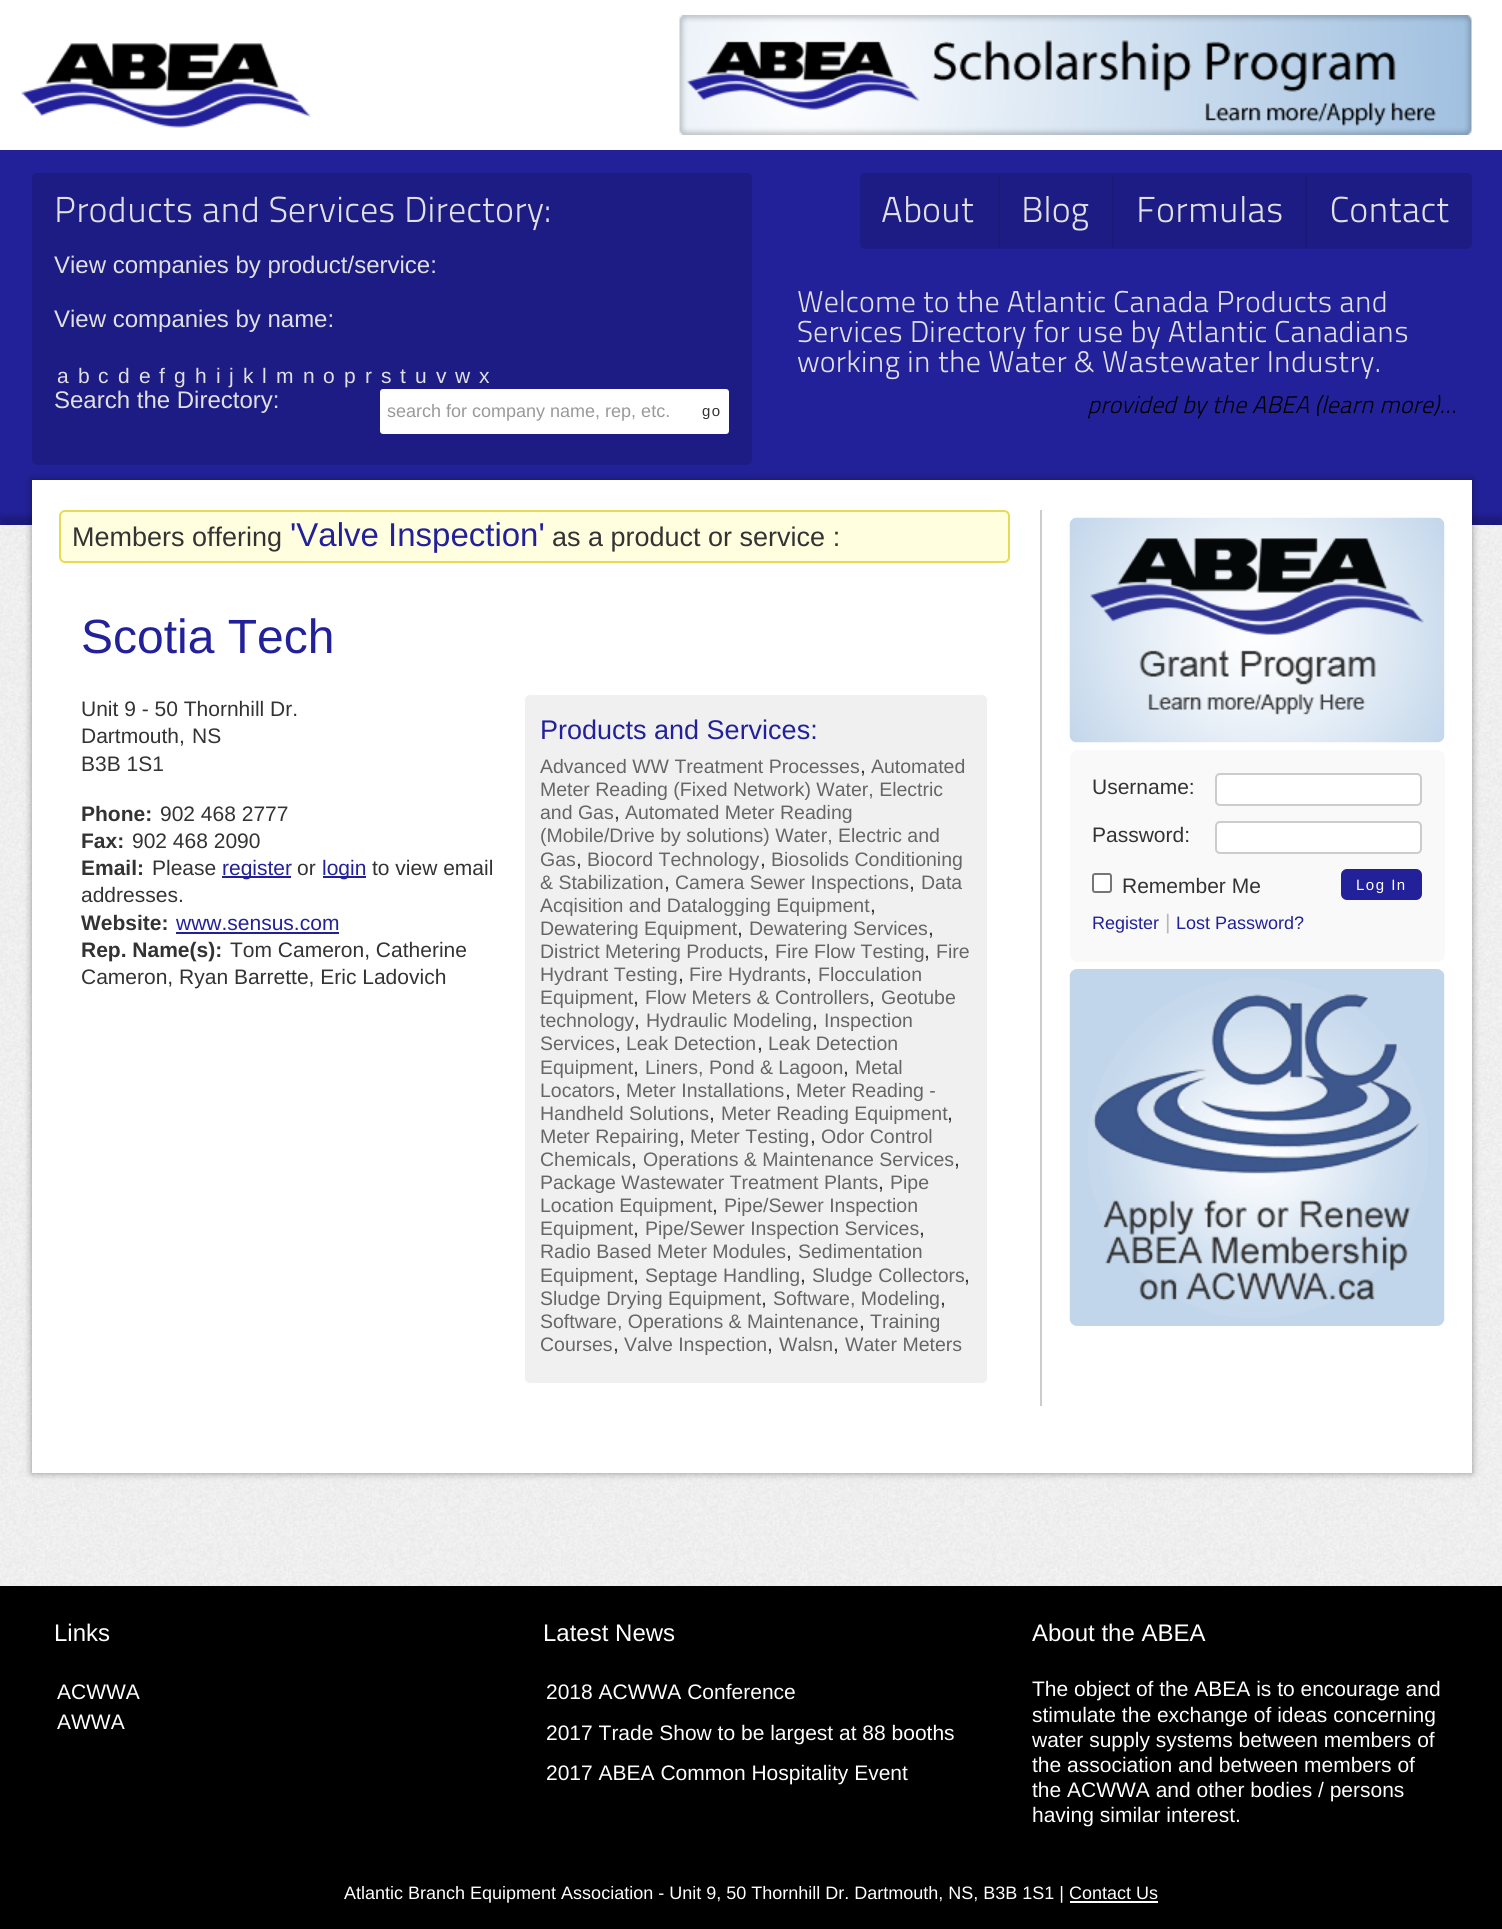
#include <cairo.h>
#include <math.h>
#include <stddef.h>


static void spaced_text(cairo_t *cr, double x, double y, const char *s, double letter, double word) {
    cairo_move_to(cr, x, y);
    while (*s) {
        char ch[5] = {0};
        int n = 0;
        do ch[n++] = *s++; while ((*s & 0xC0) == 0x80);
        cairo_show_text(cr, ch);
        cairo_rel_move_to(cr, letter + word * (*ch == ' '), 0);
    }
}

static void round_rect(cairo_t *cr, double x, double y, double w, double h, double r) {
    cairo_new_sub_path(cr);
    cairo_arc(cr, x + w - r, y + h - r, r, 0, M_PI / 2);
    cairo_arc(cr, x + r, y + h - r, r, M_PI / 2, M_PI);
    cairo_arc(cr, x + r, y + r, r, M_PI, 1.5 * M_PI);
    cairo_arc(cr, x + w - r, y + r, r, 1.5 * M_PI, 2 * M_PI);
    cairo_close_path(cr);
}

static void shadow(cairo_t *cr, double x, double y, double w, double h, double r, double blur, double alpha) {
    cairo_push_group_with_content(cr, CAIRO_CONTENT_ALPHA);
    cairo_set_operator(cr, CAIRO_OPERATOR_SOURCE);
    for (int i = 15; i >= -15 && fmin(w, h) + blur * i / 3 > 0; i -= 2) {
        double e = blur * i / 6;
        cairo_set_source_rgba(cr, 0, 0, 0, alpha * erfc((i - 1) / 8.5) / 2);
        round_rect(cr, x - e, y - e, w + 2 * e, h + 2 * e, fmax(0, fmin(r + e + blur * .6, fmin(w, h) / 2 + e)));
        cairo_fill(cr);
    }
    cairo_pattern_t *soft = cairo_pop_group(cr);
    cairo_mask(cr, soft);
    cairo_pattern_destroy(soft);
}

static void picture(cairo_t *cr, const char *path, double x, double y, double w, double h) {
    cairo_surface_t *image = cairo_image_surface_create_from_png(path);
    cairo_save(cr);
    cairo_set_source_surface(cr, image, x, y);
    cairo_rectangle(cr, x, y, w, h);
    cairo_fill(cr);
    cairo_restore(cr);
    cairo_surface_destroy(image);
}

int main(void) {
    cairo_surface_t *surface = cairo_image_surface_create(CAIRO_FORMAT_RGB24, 1502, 1929);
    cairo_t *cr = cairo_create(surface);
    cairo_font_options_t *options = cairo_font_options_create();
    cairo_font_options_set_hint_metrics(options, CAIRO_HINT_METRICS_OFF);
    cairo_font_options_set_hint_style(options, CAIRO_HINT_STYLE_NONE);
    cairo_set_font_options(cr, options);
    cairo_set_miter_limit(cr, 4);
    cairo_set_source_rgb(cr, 0, 0, 0);
    cairo_paint(cr);
    cairo_set_source_rgb(cr, 1, 1, 1);
    cairo_rectangle(cr, 0, 0, 1502, 150);
    cairo_fill(cr);
    picture(cr, "img1.png", 21, 43, 290, 85);
    picture(cr, "img2.png", 679, 15, 793, 120);
    cairo_set_source_rgb(cr, 0.137, 0.129, 0.6);
    cairo_rectangle(cr, 0, 150, 1502, 375);
    cairo_fill(cr);
    cairo_set_source_rgb(cr, 0.114, 0.11, 0.518);
    round_rect(cr, 32, 173, 720, 292, 5);
    cairo_fill(cr);
    cairo_select_font_face(cr, "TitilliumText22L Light", CAIRO_FONT_SLANT_NORMAL, CAIRO_FONT_WEIGHT_NORMAL);
    cairo_set_font_size(cr, 36);
    cairo_set_source_rgb(cr, 0.878, 0.878, 0.878);
    cairo_move_to(cr, 54, 222);
    cairo_show_text(cr, "Products and Services Directory:");
    cairo_select_font_face(cr, "Liberation Sans", CAIRO_FONT_SLANT_NORMAL, CAIRO_FONT_WEIGHT_NORMAL);
    cairo_set_font_size(cr, 24);
    cairo_move_to(cr, 54, 273);
    cairo_show_text(cr, "View companies by product/service:");
    cairo_move_to(cr, 54, 327);
    cairo_show_text(cr, "View companies by name:");
    cairo_set_font_size(cr, 21);
    cairo_move_to(cr, 57, 383);
    cairo_show_text(cr, "a");
    cairo_move_to(cr, 78, 383);
    cairo_show_text(cr, "b");
    cairo_move_to(cr, 98, 383);
    cairo_show_text(cr, "c");
    cairo_move_to(cr, 118, 383);
    cairo_show_text(cr, "d");
    cairo_move_to(cr, 139, 383);
    cairo_show_text(cr, "e");
    cairo_move_to(cr, 159, 383);
    cairo_show_text(cr, "f");
    cairo_move_to(cr, 174, 383);
    cairo_show_text(cr, "g");
    cairo_move_to(cr, 195, 383);
    cairo_show_text(cr, "h");
    cairo_move_to(cr, 216, 383);
    cairo_show_text(cr, "i");
    cairo_move_to(cr, 229, 383);
    cairo_show_text(cr, "j");
    cairo_move_to(cr, 243, 383);
    cairo_show_text(cr, "k");
    cairo_move_to(cr, 262, 383);
    cairo_show_text(cr, "l");
    cairo_move_to(cr, 276, 383);
    cairo_show_text(cr, "m");
    cairo_move_to(cr, 303, 383);
    cairo_show_text(cr, "n");
    cairo_move_to(cr, 323, 383);
    cairo_show_text(cr, "o");
    cairo_move_to(cr, 344, 383);
    cairo_show_text(cr, "p");
    cairo_move_to(cr, 365, 383);
    cairo_show_text(cr, "r");
    cairo_move_to(cr, 381, 383);
    cairo_show_text(cr, "s");
    cairo_move_to(cr, 400, 383);
    cairo_show_text(cr, "t");
    cairo_move_to(cr, 415, 383);
    cairo_show_text(cr, "u");
    cairo_move_to(cr, 436, 383);
    cairo_show_text(cr, "v");
    cairo_move_to(cr, 455, 383);
    cairo_show_text(cr, "w");
    cairo_move_to(cr, 479, 383);
    cairo_show_text(cr, "x");
    cairo_set_font_size(cr, 24);
    cairo_move_to(cr, 54, 408);
    cairo_show_text(cr, "Search the Directory:");
    cairo_set_source_rgb(cr, 1, 1, 1);
    round_rect(cr, 380, 389, 349, 45, 3);
    cairo_fill(cr);
    cairo_set_font_size(cr, 18);
    cairo_set_source_rgb(cr, 0.6, 0.6, 0.6);
    cairo_move_to(cr, 387, 417);
    cairo_show_text(cr, "search for company name, rep, etc.");
    cairo_set_font_size(cr, 15);
    cairo_set_source_rgb(cr, 0.2, 0.2, 0.2);
    spaced_text(cr, 702, 416, "go", 1.5, 0);
    cairo_set_source_rgb(cr, 0.114, 0.11, 0.518);
    round_rect(cr, 860, 173, 612, 76, 5);
    cairo_fill(cr);
    cairo_set_source_rgb(cr, 0.106, 0.102, 0.478);
    cairo_rectangle(cr, 998, 176, 2, 72);
    cairo_fill(cr);
    cairo_select_font_face(cr, "TitilliumText22L Light", CAIRO_FONT_SLANT_NORMAL, CAIRO_FONT_WEIGHT_NORMAL);
    cairo_set_font_size(cr, 36);
    cairo_set_source_rgb(cr, 0.878, 0.878, 0.878);
    cairo_move_to(cr, 881, 222);
    cairo_show_text(cr, "About");
    cairo_set_source_rgb(cr, 0.106, 0.102, 0.478);
    cairo_rectangle(cr, 1112, 176, 2, 72);
    cairo_fill(cr);
    cairo_set_source_rgb(cr, 0.878, 0.878, 0.878);
    cairo_move_to(cr, 1021, 222);
    cairo_show_text(cr, "Blog");
    cairo_set_source_rgb(cr, 0.106, 0.102, 0.478);
    cairo_rectangle(cr, 1305, 176, 2, 72);
    cairo_fill(cr);
    cairo_set_source_rgb(cr, 0.878, 0.878, 0.878);
    cairo_move_to(cr, 1136, 222);
    cairo_show_text(cr, "Formulas");
    cairo_move_to(cr, 1330, 222);
    cairo_show_text(cr, "Contact");
    cairo_set_font_size(cr, 30);
    cairo_move_to(cr, 797, 312);
    cairo_show_text(cr, "Welcome to the Atlantic Canada Products and");
    cairo_move_to(cr, 797, 342);
    cairo_show_text(cr, "Services Directory for use by Atlantic Canadians");
    cairo_move_to(cr, 797, 372);
    cairo_show_text(cr, "working in the Water & Wastewater Industry.");
    cairo_select_font_face(cr, "TitilliumText22L Light", CAIRO_FONT_SLANT_ITALIC, CAIRO_FONT_WEIGHT_NORMAL);
    cairo_set_font_size(cr, 24);
    cairo_set_source_rgb(cr, 0, 0, 0);
    cairo_move_to(cr, 1087, 413);
    cairo_show_text(cr, "provided by the ABEA (learn more)...");
    cairo_set_source_rgb(cr, 0.09, 0.086, 0.431);
    shadow(cr, 0, 516, 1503, 1400, 0, 3, 0.7);
    picture(cr, "img3.png", 0, 525, 1502, 1061);
    cairo_set_source_rgb(cr, 0, 0, 0);
    shadow(cr, 32, 480, 1440, 993, 0, 4, 0.4);
    cairo_set_source_rgb(cr, 1, 1, 1);
    cairo_rectangle(cr, 32, 480, 1440, 993);
    cairo_fill(cr);
    cairo_set_source_rgb(cr, 0.8, 0.8, 0.8);
    cairo_rectangle(cr, 1040, 510, 2, 896);
    cairo_fill(cr);
    cairo_set_source_rgb(cr, 1, 1, 0.878);
    round_rect(cr, 60, 511, 949, 51, 5);
    cairo_fill_preserve(cr);
    cairo_set_source_rgb(cr, 0.902, 0.859, 0.333);
    cairo_stroke(cr);
    cairo_select_font_face(cr, "Liberation Sans", CAIRO_FONT_SLANT_NORMAL, CAIRO_FONT_WEIGHT_NORMAL);
    cairo_set_font_size(cr, 27);
    cairo_set_source_rgb(cr, 0.2, 0.2, 0.2);
    cairo_move_to(cr, 72, 546);
    cairo_show_text(cr, "Members offering");
    cairo_set_font_size(cr, 33);
    cairo_set_source_rgb(cr, 0.137, 0.129, 0.6);
    cairo_move_to(cr, 290, 546);
    cairo_show_text(cr, "'Valve Inspection'");
    cairo_set_font_size(cr, 27);
    cairo_set_source_rgb(cr, 0.2, 0.2, 0.2);
    cairo_move_to(cr, 552, 546);
    cairo_show_text(cr, "as a product or service :");
    cairo_set_font_size(cr, 48);
    cairo_set_source_rgb(cr, 0.137, 0.129, 0.6);
    cairo_move_to(cr, 81, 653);
    cairo_show_text(cr, "Scotia Tech");
    cairo_set_font_size(cr, 21);
    cairo_set_source_rgb(cr, 0.2, 0.2, 0.2);
    cairo_move_to(cr, 81, 716);
    cairo_show_text(cr, "Unit 9 - 50 Thornhill Dr.");
    cairo_move_to(cr, 81, 743);
    cairo_show_text(cr, "Dartmouth,");
    cairo_move_to(cr, 192, 743);
    cairo_show_text(cr, "NS");
    cairo_move_to(cr, 81, 771);
    cairo_show_text(cr, "B3B 1S1");
    cairo_set_source_rgb(cr, 0.941, 0.941, 0.941);
    round_rect(cr, 525, 695, 462, 688, 5);
    cairo_fill(cr);
    cairo_set_font_size(cr, 27);
    cairo_set_source_rgb(cr, 0.137, 0.129, 0.6);
    cairo_move_to(cr, 540, 739);
    cairo_show_text(cr, "Products and Services:");
    cairo_set_font_size(cr, 19.5);
    cairo_set_source_rgb(cr, 0.4, 0.4, 0.4);
    cairo_move_to(cr, 540, 773);
    cairo_show_text(cr, "Advanced WW Treatment Processes");
    cairo_set_font_size(cr, 21);
    cairo_set_source_rgb(cr, 0.2, 0.2, 0.2);
    cairo_move_to(cr, 860, 773);
    cairo_show_text(cr, ",");
    cairo_set_font_size(cr, 19.5);
    cairo_set_source_rgb(cr, 0.4, 0.4, 0.4);
    cairo_move_to(cr, 871, 773);
    cairo_show_text(cr, "Automated");
    cairo_move_to(cr, 540, 796);
    cairo_show_text(cr, "Meter Reading (Fixed Network) Water, Electric");
    cairo_move_to(cr, 540, 819);
    cairo_show_text(cr, "and Gas");
    cairo_set_font_size(cr, 21);
    cairo_set_source_rgb(cr, 0.2, 0.2, 0.2);
    cairo_move_to(cr, 614, 819);
    cairo_show_text(cr, ",");
    cairo_set_font_size(cr, 19.5);
    cairo_set_source_rgb(cr, 0.4, 0.4, 0.4);
    cairo_move_to(cr, 625, 819);
    cairo_show_text(cr, "Automated Meter Reading");
    cairo_move_to(cr, 540, 842);
    cairo_show_text(cr, "(Mobile/Drive by solutions) Water, Electric and");
    cairo_move_to(cr, 540, 866);
    cairo_show_text(cr, "Gas");
    cairo_set_font_size(cr, 21);
    cairo_set_source_rgb(cr, 0.2, 0.2, 0.2);
    cairo_move_to(cr, 576, 866);
    cairo_show_text(cr, ",");
    cairo_set_font_size(cr, 19.5);
    cairo_set_source_rgb(cr, 0.4, 0.4, 0.4);
    cairo_move_to(cr, 587, 866);
    cairo_show_text(cr, "Biocord Technology");
    cairo_set_font_size(cr, 21);
    cairo_set_source_rgb(cr, 0.2, 0.2, 0.2);
    cairo_move_to(cr, 760, 866);
    cairo_show_text(cr, ",");
    cairo_set_font_size(cr, 19.5);
    cairo_set_source_rgb(cr, 0.4, 0.4, 0.4);
    cairo_move_to(cr, 771, 866);
    cairo_show_text(cr, "Biosolids Conditioning");
    cairo_move_to(cr, 540, 889);
    cairo_show_text(cr, "& Stabilization");
    cairo_set_font_size(cr, 21);
    cairo_set_source_rgb(cr, 0.2, 0.2, 0.2);
    cairo_move_to(cr, 664, 889);
    cairo_show_text(cr, ",");
    cairo_set_font_size(cr, 19.5);
    cairo_set_source_rgb(cr, 0.4, 0.4, 0.4);
    cairo_move_to(cr, 675, 889);
    cairo_show_text(cr, "Camera Sewer Inspections");
    cairo_set_font_size(cr, 21);
    cairo_set_source_rgb(cr, 0.2, 0.2, 0.2);
    cairo_move_to(cr, 909, 889);
    cairo_show_text(cr, ",");
    cairo_set_font_size(cr, 19.5);
    cairo_set_source_rgb(cr, 0.4, 0.4, 0.4);
    cairo_move_to(cr, 921, 889);
    cairo_show_text(cr, "Data");
    cairo_move_to(cr, 540, 912);
    cairo_show_text(cr, "Acqisition and Datalogging Equipment");
    cairo_set_font_size(cr, 21);
    cairo_set_source_rgb(cr, 0.2, 0.2, 0.2);
    cairo_move_to(cr, 870, 912);
    cairo_show_text(cr, ",");
    cairo_set_font_size(cr, 19.5);
    cairo_set_source_rgb(cr, 0.4, 0.4, 0.4);
    cairo_move_to(cr, 540, 935);
    cairo_show_text(cr, "Dewatering Equipment");
    cairo_set_font_size(cr, 21);
    cairo_set_source_rgb(cr, 0.2, 0.2, 0.2);
    cairo_move_to(cr, 737, 935);
    cairo_show_text(cr, ",");
    cairo_set_font_size(cr, 19.5);
    cairo_set_source_rgb(cr, 0.4, 0.4, 0.4);
    cairo_move_to(cr, 749, 935);
    cairo_show_text(cr, "Dewatering Services");
    cairo_set_font_size(cr, 21);
    cairo_set_source_rgb(cr, 0.2, 0.2, 0.2);
    cairo_move_to(cr, 928, 935);
    cairo_show_text(cr, ",");
    cairo_set_font_size(cr, 19.5);
    cairo_set_source_rgb(cr, 0.4, 0.4, 0.4);
    cairo_move_to(cr, 540, 958);
    cairo_show_text(cr, "District Metering Products");
    cairo_set_font_size(cr, 21);
    cairo_set_source_rgb(cr, 0.2, 0.2, 0.2);
    cairo_move_to(cr, 763, 958);
    cairo_show_text(cr, ",");
    cairo_set_font_size(cr, 19.5);
    cairo_set_source_rgb(cr, 0.4, 0.4, 0.4);
    cairo_move_to(cr, 775, 958);
    cairo_show_text(cr, "Fire Flow Testing");
    cairo_set_font_size(cr, 21);
    cairo_set_source_rgb(cr, 0.2, 0.2, 0.2);
    cairo_move_to(cr, 924, 958);
    cairo_show_text(cr, ",");
    cairo_set_font_size(cr, 19.5);
    cairo_set_source_rgb(cr, 0.4, 0.4, 0.4);
    cairo_move_to(cr, 936, 958);
    cairo_show_text(cr, "Fire");
    cairo_move_to(cr, 540, 981);
    cairo_show_text(cr, "Hydrant Testing");
    cairo_set_font_size(cr, 21);
    cairo_set_source_rgb(cr, 0.2, 0.2, 0.2);
    cairo_move_to(cr, 678, 981);
    cairo_show_text(cr, ",");
    cairo_set_font_size(cr, 19.5);
    cairo_set_source_rgb(cr, 0.4, 0.4, 0.4);
    cairo_move_to(cr, 689, 981);
    cairo_show_text(cr, "Fire Hydrants");
    cairo_set_font_size(cr, 21);
    cairo_set_source_rgb(cr, 0.2, 0.2, 0.2);
    cairo_move_to(cr, 806, 981);
    cairo_show_text(cr, ",");
    cairo_set_font_size(cr, 19.5);
    cairo_set_source_rgb(cr, 0.4, 0.4, 0.4);
    cairo_move_to(cr, 818, 981);
    cairo_show_text(cr, "Flocculation");
    cairo_move_to(cr, 540, 1004);
    cairo_show_text(cr, "Equipment");
    cairo_set_font_size(cr, 21);
    cairo_set_source_rgb(cr, 0.2, 0.2, 0.2);
    cairo_move_to(cr, 633, 1004);
    cairo_show_text(cr, ",");
    cairo_set_font_size(cr, 19.5);
    cairo_set_source_rgb(cr, 0.4, 0.4, 0.4);
    cairo_move_to(cr, 645, 1004);
    cairo_show_text(cr, "Flow Meters & Controllers");
    cairo_set_font_size(cr, 21);
    cairo_set_source_rgb(cr, 0.2, 0.2, 0.2);
    cairo_move_to(cr, 869, 1004);
    cairo_show_text(cr, ",");
    cairo_set_font_size(cr, 19.5);
    cairo_set_source_rgb(cr, 0.4, 0.4, 0.4);
    cairo_move_to(cr, 881, 1004);
    cairo_show_text(cr, "Geotube");
    cairo_move_to(cr, 540, 1027);
    cairo_show_text(cr, "technology");
    cairo_set_font_size(cr, 21);
    cairo_set_source_rgb(cr, 0.2, 0.2, 0.2);
    cairo_move_to(cr, 634, 1027);
    cairo_show_text(cr, ",");
    cairo_set_font_size(cr, 19.5);
    cairo_set_source_rgb(cr, 0.4, 0.4, 0.4);
    cairo_move_to(cr, 646, 1027);
    cairo_show_text(cr, "Hydraulic Modeling");
    cairo_set_font_size(cr, 21);
    cairo_set_source_rgb(cr, 0.2, 0.2, 0.2);
    cairo_move_to(cr, 812, 1027);
    cairo_show_text(cr, ",");
    cairo_set_font_size(cr, 19.5);
    cairo_set_source_rgb(cr, 0.4, 0.4, 0.4);
    cairo_move_to(cr, 824, 1027);
    cairo_show_text(cr, "Inspection");
    cairo_move_to(cr, 540, 1050);
    cairo_show_text(cr, "Services");
    cairo_set_font_size(cr, 21);
    cairo_set_source_rgb(cr, 0.2, 0.2, 0.2);
    cairo_move_to(cr, 615, 1050);
    cairo_show_text(cr, ",");
    cairo_set_font_size(cr, 19.5);
    cairo_set_source_rgb(cr, 0.4, 0.4, 0.4);
    cairo_move_to(cr, 626, 1050);
    cairo_show_text(cr, "Leak Detection");
    cairo_set_font_size(cr, 21);
    cairo_set_source_rgb(cr, 0.2, 0.2, 0.2);
    cairo_move_to(cr, 757, 1050);
    cairo_show_text(cr, ",");
    cairo_set_font_size(cr, 19.5);
    cairo_set_source_rgb(cr, 0.4, 0.4, 0.4);
    cairo_move_to(cr, 768, 1050);
    cairo_show_text(cr, "Leak Detection");
    cairo_move_to(cr, 540, 1074);
    cairo_show_text(cr, "Equipment");
    cairo_set_font_size(cr, 21);
    cairo_set_source_rgb(cr, 0.2, 0.2, 0.2);
    cairo_move_to(cr, 633, 1074);
    cairo_show_text(cr, ",");
    cairo_set_font_size(cr, 19.5);
    cairo_set_source_rgb(cr, 0.4, 0.4, 0.4);
    cairo_move_to(cr, 645, 1074);
    cairo_show_text(cr, "Liners, Pond & Lagoon");
    cairo_set_font_size(cr, 21);
    cairo_set_source_rgb(cr, 0.2, 0.2, 0.2);
    cairo_move_to(cr, 843, 1074);
    cairo_show_text(cr, ",");
    cairo_set_font_size(cr, 19.5);
    cairo_set_source_rgb(cr, 0.4, 0.4, 0.4);
    cairo_move_to(cr, 855, 1074);
    cairo_show_text(cr, "Metal");
    cairo_move_to(cr, 540, 1097);
    cairo_show_text(cr, "Locators");
    cairo_set_font_size(cr, 21);
    cairo_set_source_rgb(cr, 0.2, 0.2, 0.2);
    cairo_move_to(cr, 615, 1097);
    cairo_show_text(cr, ",");
    cairo_set_font_size(cr, 19.5);
    cairo_set_source_rgb(cr, 0.4, 0.4, 0.4);
    cairo_move_to(cr, 626, 1097);
    cairo_show_text(cr, "Meter Installations");
    cairo_set_font_size(cr, 21);
    cairo_set_source_rgb(cr, 0.2, 0.2, 0.2);
    cairo_move_to(cr, 785, 1097);
    cairo_show_text(cr, ",");
    cairo_set_font_size(cr, 19.5);
    cairo_set_source_rgb(cr, 0.4, 0.4, 0.4);
    cairo_move_to(cr, 796, 1097);
    cairo_show_text(cr, "Meter Reading -");
    cairo_move_to(cr, 540, 1120);
    cairo_show_text(cr, "Handheld Solutions");
    cairo_set_font_size(cr, 21);
    cairo_set_source_rgb(cr, 0.2, 0.2, 0.2);
    cairo_move_to(cr, 709, 1120);
    cairo_show_text(cr, ",");
    cairo_set_font_size(cr, 19.5);
    cairo_set_source_rgb(cr, 0.4, 0.4, 0.4);
    cairo_move_to(cr, 721, 1120);
    cairo_show_text(cr, "Meter Reading Equipment");
    cairo_set_font_size(cr, 21);
    cairo_set_source_rgb(cr, 0.2, 0.2, 0.2);
    cairo_move_to(cr, 947, 1120);
    cairo_show_text(cr, ",");
    cairo_set_font_size(cr, 19.5);
    cairo_set_source_rgb(cr, 0.4, 0.4, 0.4);
    cairo_move_to(cr, 540, 1143);
    cairo_show_text(cr, "Meter Repairing");
    cairo_set_font_size(cr, 21);
    cairo_set_source_rgb(cr, 0.2, 0.2, 0.2);
    cairo_move_to(cr, 679, 1143);
    cairo_show_text(cr, ",");
    cairo_set_font_size(cr, 19.5);
    cairo_set_source_rgb(cr, 0.4, 0.4, 0.4);
    cairo_move_to(cr, 690, 1143);
    cairo_show_text(cr, "Meter Testing");
    cairo_set_font_size(cr, 21);
    cairo_set_source_rgb(cr, 0.2, 0.2, 0.2);
    cairo_move_to(cr, 810, 1143);
    cairo_show_text(cr, ",");
    cairo_set_font_size(cr, 19.5);
    cairo_set_source_rgb(cr, 0.4, 0.4, 0.4);
    cairo_move_to(cr, 821, 1143);
    cairo_show_text(cr, "Odor Control");
    cairo_move_to(cr, 540, 1166);
    cairo_show_text(cr, "Chemicals");
    cairo_set_font_size(cr, 21);
    cairo_set_source_rgb(cr, 0.2, 0.2, 0.2);
    cairo_move_to(cr, 631, 1166);
    cairo_show_text(cr, ",");
    cairo_set_font_size(cr, 19.5);
    cairo_set_source_rgb(cr, 0.4, 0.4, 0.4);
    cairo_move_to(cr, 643, 1166);
    cairo_show_text(cr, "Operations & Maintenance Services");
    cairo_set_font_size(cr, 21);
    cairo_set_source_rgb(cr, 0.2, 0.2, 0.2);
    cairo_move_to(cr, 954, 1166);
    cairo_show_text(cr, ",");
    cairo_set_font_size(cr, 19.5);
    cairo_set_source_rgb(cr, 0.4, 0.4, 0.4);
    cairo_move_to(cr, 540, 1189);
    cairo_show_text(cr, "Package Wastewater Treatment Plants");
    cairo_set_font_size(cr, 21);
    cairo_set_source_rgb(cr, 0.2, 0.2, 0.2);
    cairo_move_to(cr, 878, 1189);
    cairo_show_text(cr, ",");
    cairo_set_font_size(cr, 19.5);
    cairo_set_source_rgb(cr, 0.4, 0.4, 0.4);
    cairo_move_to(cr, 890, 1189);
    cairo_show_text(cr, "Pipe");
    cairo_move_to(cr, 540, 1212);
    cairo_show_text(cr, "Location Equipment");
    cairo_set_font_size(cr, 21);
    cairo_set_source_rgb(cr, 0.2, 0.2, 0.2);
    cairo_move_to(cr, 712, 1212);
    cairo_show_text(cr, ",");
    cairo_set_font_size(cr, 19.5);
    cairo_set_source_rgb(cr, 0.4, 0.4, 0.4);
    cairo_move_to(cr, 724, 1212);
    cairo_show_text(cr, "Pipe/Sewer Inspection");
    cairo_move_to(cr, 540, 1235);
    cairo_show_text(cr, "Equipment");
    cairo_set_font_size(cr, 21);
    cairo_set_source_rgb(cr, 0.2, 0.2, 0.2);
    cairo_move_to(cr, 633, 1235);
    cairo_show_text(cr, ",");
    cairo_set_font_size(cr, 19.5);
    cairo_set_source_rgb(cr, 0.4, 0.4, 0.4);
    cairo_move_to(cr, 645, 1235);
    cairo_show_text(cr, "Pipe/Sewer Inspection Services");
    cairo_set_font_size(cr, 21);
    cairo_set_source_rgb(cr, 0.2, 0.2, 0.2);
    cairo_move_to(cr, 919, 1235);
    cairo_show_text(cr, ",");
    cairo_set_font_size(cr, 19.5);
    cairo_set_source_rgb(cr, 0.4, 0.4, 0.4);
    cairo_move_to(cr, 540, 1258);
    cairo_show_text(cr, "Radio Based Meter Modules");
    cairo_set_font_size(cr, 21);
    cairo_set_source_rgb(cr, 0.2, 0.2, 0.2);
    cairo_move_to(cr, 786, 1258);
    cairo_show_text(cr, ",");
    cairo_set_font_size(cr, 19.5);
    cairo_set_source_rgb(cr, 0.4, 0.4, 0.4);
    cairo_move_to(cr, 798, 1258);
    cairo_show_text(cr, "Sedimentation");
    cairo_move_to(cr, 540, 1282);
    cairo_show_text(cr, "Equipment");
    cairo_set_font_size(cr, 21);
    cairo_set_source_rgb(cr, 0.2, 0.2, 0.2);
    cairo_move_to(cr, 633, 1282);
    cairo_show_text(cr, ",");
    cairo_set_font_size(cr, 19.5);
    cairo_set_source_rgb(cr, 0.4, 0.4, 0.4);
    cairo_move_to(cr, 645, 1282);
    cairo_show_text(cr, "Septage Handling");
    cairo_set_font_size(cr, 21);
    cairo_set_source_rgb(cr, 0.2, 0.2, 0.2);
    cairo_move_to(cr, 800, 1282);
    cairo_show_text(cr, ",");
    cairo_set_font_size(cr, 19.5);
    cairo_set_source_rgb(cr, 0.4, 0.4, 0.4);
    cairo_move_to(cr, 812, 1282);
    cairo_show_text(cr, "Sludge Collectors");
    cairo_set_font_size(cr, 21);
    cairo_set_source_rgb(cr, 0.2, 0.2, 0.2);
    cairo_move_to(cr, 964, 1282);
    cairo_show_text(cr, ",");
    cairo_set_font_size(cr, 19.5);
    cairo_set_source_rgb(cr, 0.4, 0.4, 0.4);
    cairo_move_to(cr, 540, 1305);
    cairo_show_text(cr, "Sludge Drying Equipment");
    cairo_set_font_size(cr, 21);
    cairo_set_source_rgb(cr, 0.2, 0.2, 0.2);
    cairo_move_to(cr, 761, 1305);
    cairo_show_text(cr, ",");
    cairo_set_font_size(cr, 19.5);
    cairo_set_source_rgb(cr, 0.4, 0.4, 0.4);
    cairo_move_to(cr, 773, 1305);
    cairo_show_text(cr, "Software, Modeling");
    cairo_set_font_size(cr, 21);
    cairo_set_source_rgb(cr, 0.2, 0.2, 0.2);
    cairo_move_to(cr, 940, 1305);
    cairo_show_text(cr, ",");
    cairo_set_font_size(cr, 19.5);
    cairo_set_source_rgb(cr, 0.4, 0.4, 0.4);
    cairo_move_to(cr, 540, 1328);
    cairo_show_text(cr, "Software, Operations & Maintenance");
    cairo_set_font_size(cr, 21);
    cairo_set_source_rgb(cr, 0.2, 0.2, 0.2);
    cairo_move_to(cr, 859, 1328);
    cairo_show_text(cr, ",");
    cairo_set_font_size(cr, 19.5);
    cairo_set_source_rgb(cr, 0.4, 0.4, 0.4);
    cairo_move_to(cr, 870, 1328);
    cairo_show_text(cr, "Training");
    cairo_move_to(cr, 540, 1351);
    cairo_show_text(cr, "Courses");
    cairo_set_font_size(cr, 21);
    cairo_set_source_rgb(cr, 0.2, 0.2, 0.2);
    cairo_move_to(cr, 613, 1351);
    cairo_show_text(cr, ",");
    cairo_set_font_size(cr, 19.5);
    cairo_set_source_rgb(cr, 0.4, 0.4, 0.4);
    cairo_move_to(cr, 624, 1351);
    cairo_show_text(cr, "Valve Inspection");
    cairo_set_font_size(cr, 21);
    cairo_set_source_rgb(cr, 0.2, 0.2, 0.2);
    cairo_move_to(cr, 767, 1351);
    cairo_show_text(cr, ",");
    cairo_set_font_size(cr, 19.5);
    cairo_set_source_rgb(cr, 0.4, 0.4, 0.4);
    cairo_move_to(cr, 779, 1351);
    cairo_show_text(cr, "Walsn");
    cairo_set_font_size(cr, 21);
    cairo_set_source_rgb(cr, 0.2, 0.2, 0.2);
    cairo_move_to(cr, 833, 1351);
    cairo_show_text(cr, ",");
    cairo_set_font_size(cr, 19.5);
    cairo_set_source_rgb(cr, 0.4, 0.4, 0.4);
    cairo_move_to(cr, 845, 1351);
    cairo_show_text(cr, "Water Meters");
    cairo_select_font_face(cr, "Liberation Sans", CAIRO_FONT_SLANT_NORMAL, CAIRO_FONT_WEIGHT_BOLD);
    cairo_set_font_size(cr, 21);
    cairo_set_source_rgb(cr, 0.2, 0.2, 0.2);
    cairo_move_to(cr, 81, 821);
    cairo_show_text(cr, "Phone:");
    cairo_select_font_face(cr, "Liberation Sans", CAIRO_FONT_SLANT_NORMAL, CAIRO_FONT_WEIGHT_NORMAL);
    cairo_move_to(cr, 160, 821);
    cairo_show_text(cr, "902 468 2777");
    cairo_select_font_face(cr, "Liberation Sans", CAIRO_FONT_SLANT_NORMAL, CAIRO_FONT_WEIGHT_BOLD);
    cairo_move_to(cr, 81, 848);
    cairo_show_text(cr, "Fax:");
    cairo_select_font_face(cr, "Liberation Sans", CAIRO_FONT_SLANT_NORMAL, CAIRO_FONT_WEIGHT_NORMAL);
    cairo_move_to(cr, 132, 848);
    cairo_show_text(cr, "902 468 2090");
    cairo_move_to(cr, 152, 875);
    cairo_show_text(cr, "Please");
    cairo_set_source_rgb(cr, 0.133, 0.125, 0.6);
    cairo_rectangle(cr, 222, 876, 69, 2);
    cairo_fill(cr);
    cairo_set_source_rgb(cr, 0.137, 0.129, 0.6);
    cairo_move_to(cr, 222, 875);
    cairo_show_text(cr, "register");
    cairo_set_source_rgb(cr, 0.2, 0.2, 0.2);
    cairo_move_to(cr, 297, 875);
    cairo_show_text(cr, "or");
    cairo_set_source_rgb(cr, 0.133, 0.125, 0.6);
    cairo_rectangle(cr, 323, 876, 43, 2);
    cairo_fill(cr);
    cairo_set_source_rgb(cr, 0.137, 0.129, 0.6);
    cairo_move_to(cr, 322, 875);
    cairo_show_text(cr, "login");
    cairo_set_source_rgb(cr, 0.2, 0.2, 0.2);
    cairo_move_to(cr, 372, 875);
    cairo_show_text(cr, "to view email");
    cairo_move_to(cr, 81, 902);
    cairo_show_text(cr, "addresses.");
    cairo_select_font_face(cr, "Liberation Sans", CAIRO_FONT_SLANT_NORMAL, CAIRO_FONT_WEIGHT_BOLD);
    cairo_move_to(cr, 81, 875);
    cairo_show_text(cr, "Email:");
    cairo_move_to(cr, 81, 930);
    cairo_show_text(cr, "Website:");
    cairo_select_font_face(cr, "Liberation Sans", CAIRO_FONT_SLANT_NORMAL, CAIRO_FONT_WEIGHT_NORMAL);
    cairo_set_source_rgb(cr, 0.137, 0.129, 0.6);
    cairo_move_to(cr, 176, 930);
    cairo_show_text(cr, "www.sensus.com");
    cairo_set_source_rgb(cr, 0.133, 0.125, 0.6);
    cairo_rectangle(cr, 176, 932, 163, 2);
    cairo_fill(cr);
    cairo_select_font_face(cr, "Liberation Sans", CAIRO_FONT_SLANT_NORMAL, CAIRO_FONT_WEIGHT_BOLD);
    cairo_set_source_rgb(cr, 0.2, 0.2, 0.2);
    cairo_move_to(cr, 81, 957);
    cairo_show_text(cr, "Rep. Name(s):");
    cairo_select_font_face(cr, "Liberation Sans", CAIRO_FONT_SLANT_NORMAL, CAIRO_FONT_WEIGHT_NORMAL);
    cairo_move_to(cr, 230, 957);
    cairo_show_text(cr, "Tom Cameron, Catherine");
    cairo_move_to(cr, 81, 984);
    cairo_show_text(cr, "Cameron, Ryan Barrette, Eric Ladovich");
    picture(cr, "img4.png", 1069, 517, 376, 226);
    cairo_set_source_rgb(cr, 0.973, 0.973, 0.973);
    round_rect(cr, 1070, 750, 375, 212, 8);
    cairo_fill(cr);
    cairo_set_source_rgb(cr, 0.2, 0.2, 0.2);
    cairo_move_to(cr, 1092, 794);
    cairo_show_text(cr, "Username:");
    cairo_set_source_rgb(cr, 1, 1, 1);
    round_rect(cr, 1216, 774, 205, 31, 4);
    cairo_fill_preserve(cr);
    cairo_set_source_rgb(cr, 0.8, 0.8, 0.8);
    cairo_stroke(cr);
    cairo_set_source_rgb(cr, 0.2, 0.2, 0.2);
    cairo_move_to(cr, 1092, 842);
    cairo_show_text(cr, "Password:");
    cairo_set_source_rgb(cr, 1, 1, 1);
    round_rect(cr, 1216, 822, 205, 31, 4);
    cairo_fill_preserve(cr);
    cairo_set_source_rgb(cr, 0.8, 0.8, 0.8);
    cairo_stroke(cr);
    cairo_set_source_rgb(cr, 1, 1, 1);
    round_rect(cr, 1093, 874, 18, 18, 2);
    cairo_fill_preserve(cr);
    cairo_set_source_rgb(cr, 0.463, 0.463, 0.463);
    cairo_stroke(cr);
    cairo_set_source_rgb(cr, 0.2, 0.2, 0.2);
    cairo_move_to(cr, 1122, 893);
    cairo_show_text(cr, "Remember Me");
    cairo_set_source_rgb(cr, 0.137, 0.129, 0.6);
    round_rect(cr, 1341, 869, 81, 31, 6);
    cairo_fill(cr);
    cairo_set_font_size(cr, 15);
    cairo_set_source_rgb(cr, 1, 1, 1);
    spaced_text(cr, 1356, 890, "Log In", 1.5, 0);
    cairo_set_font_size(cr, 18);
    cairo_set_source_rgb(cr, 0.137, 0.129, 0.6);
    cairo_move_to(cr, 1092, 929);
    cairo_show_text(cr, "Register");
    cairo_set_font_size(cr, 21);
    cairo_set_source_rgb(cr, 0.722, 0.722, 0.722);
    cairo_move_to(cr, 1165, 929);
    cairo_show_text(cr, "|");
    cairo_set_font_size(cr, 18);
    cairo_set_source_rgb(cr, 0.137, 0.129, 0.6);
    cairo_move_to(cr, 1176, 929);
    cairo_show_text(cr, "Lost Password?");
    picture(cr, "img5.png", 1069, 969, 376, 357);
    cairo_set_source_rgb(cr, 0, 0, 0);
    cairo_rectangle(cr, 0, 1586, 1502, 335);
    cairo_fill(cr);
    cairo_set_font_size(cr, 24);
    cairo_set_source_rgb(cr, 1, 1, 1);
    cairo_move_to(cr, 54, 1641);
    cairo_show_text(cr, "Links");
    cairo_set_font_size(cr, 21);
    cairo_move_to(cr, 57, 1699);
    cairo_show_text(cr, "ACWWA");
    cairo_move_to(cr, 57, 1729);
    cairo_show_text(cr, "AWWA");
    cairo_set_font_size(cr, 24);
    cairo_move_to(cr, 543, 1641);
    cairo_show_text(cr, "Latest News");
    cairo_set_font_size(cr, 21);
    cairo_move_to(cr, 546, 1699);
    cairo_show_text(cr, "2018 ACWWA Conference");
    cairo_move_to(cr, 546, 1740);
    cairo_show_text(cr, "2017 Trade Show to be largest at 88 booths");
    cairo_move_to(cr, 546, 1780);
    cairo_show_text(cr, "2017 ABEA Common Hospitality Event");
    cairo_set_font_size(cr, 24);
    cairo_move_to(cr, 1032, 1641);
    cairo_show_text(cr, "About the ABEA");
    cairo_set_font_size(cr, 21);
    cairo_move_to(cr, 1032, 1696);
    cairo_show_text(cr, "The object of the ABEA is to encourage and");
    cairo_move_to(cr, 1032, 1722);
    cairo_show_text(cr, "stimulate the exchange of ideas concerning");
    cairo_move_to(cr, 1032, 1747);
    cairo_show_text(cr, "water supply systems between members of");
    cairo_move_to(cr, 1032, 1772);
    cairo_show_text(cr, "the association and between members of");
    cairo_move_to(cr, 1032, 1797);
    cairo_show_text(cr, "the ACWWA and other bodies / persons");
    cairo_move_to(cr, 1032, 1822);
    cairo_show_text(cr, "having similar interest.");
    cairo_set_font_size(cr, 18);
    cairo_move_to(cr, 344, 1899);
    cairo_show_text(cr, "Atlantic Branch Equipment Association - Unit 9, 50 Thornhill Dr. Dartmouth, NS, B3B 1S1 | Contact Us");
    cairo_rectangle(cr, 1070, 1901, 88, 2);
    cairo_fill(cr);
    cairo_surface_write_to_png(surface, "page.png");
    cairo_font_options_destroy(options);
    cairo_destroy(cr);
    cairo_surface_destroy(surface);
    return 0;
}
